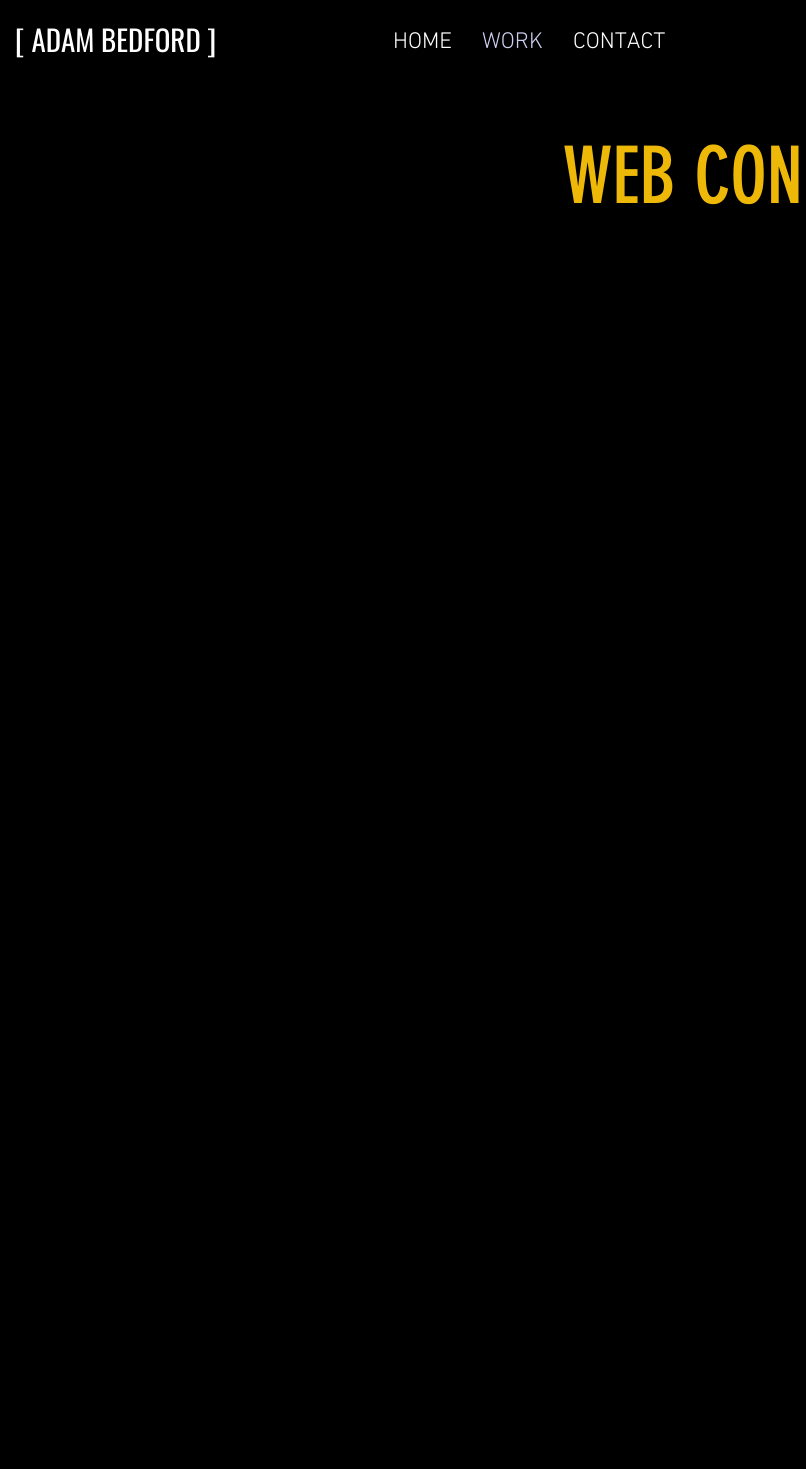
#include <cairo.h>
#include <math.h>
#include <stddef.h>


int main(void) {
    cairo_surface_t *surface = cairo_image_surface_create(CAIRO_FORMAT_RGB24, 806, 1469);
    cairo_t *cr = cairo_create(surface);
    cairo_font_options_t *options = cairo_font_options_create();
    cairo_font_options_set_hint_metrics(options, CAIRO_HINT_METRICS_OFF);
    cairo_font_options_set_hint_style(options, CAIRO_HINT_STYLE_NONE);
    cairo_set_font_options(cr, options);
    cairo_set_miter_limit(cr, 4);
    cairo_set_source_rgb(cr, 0, 0, 0);
    cairo_paint(cr);
    cairo_select_font_face(cr, "Oswald", CAIRO_FONT_SLANT_NORMAL, CAIRO_FONT_WEIGHT_NORMAL);
    cairo_set_font_size(cr, 29);
    cairo_set_source_rgb(cr, 1, 1, 1);
    cairo_move_to(cr, 15, 52);
    cairo_show_text(cr, "[ ADAM BEDFORD ]");
    cairo_select_font_face(cr, "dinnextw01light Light", CAIRO_FONT_SLANT_NORMAL, CAIRO_FONT_WEIGHT_NORMAL);
    cairo_set_font_size(cr, 23);
    cairo_move_to(cr, 393, 48);
    cairo_show_text(cr, "HOME");
    cairo_set_source_rgb(cr, 0.804, 0.812, 0.941);
    cairo_move_to(cr, 482, 48);
    cairo_show_text(cr, "WORK");
    cairo_set_source_rgb(cr, 1, 1, 1);
    cairo_move_to(cr, 573, 48);
    cairo_show_text(cr, "CONTACT");
    cairo_select_font_face(cr, "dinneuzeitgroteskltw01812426", CAIRO_FONT_SLANT_NORMAL, CAIRO_FONT_WEIGHT_NORMAL);
    cairo_set_font_size(cr, 78);
    cairo_set_source_rgb(cr, 0.929, 0.722, 0.035);
    cairo_move_to(cr, 563, 203);
    cairo_show_text(cr, "WEB CON");
    cairo_surface_write_to_png(surface, "page.png");
    cairo_font_options_destroy(options);
    cairo_destroy(cr);
    cairo_surface_destroy(surface);
    return 0;
}
